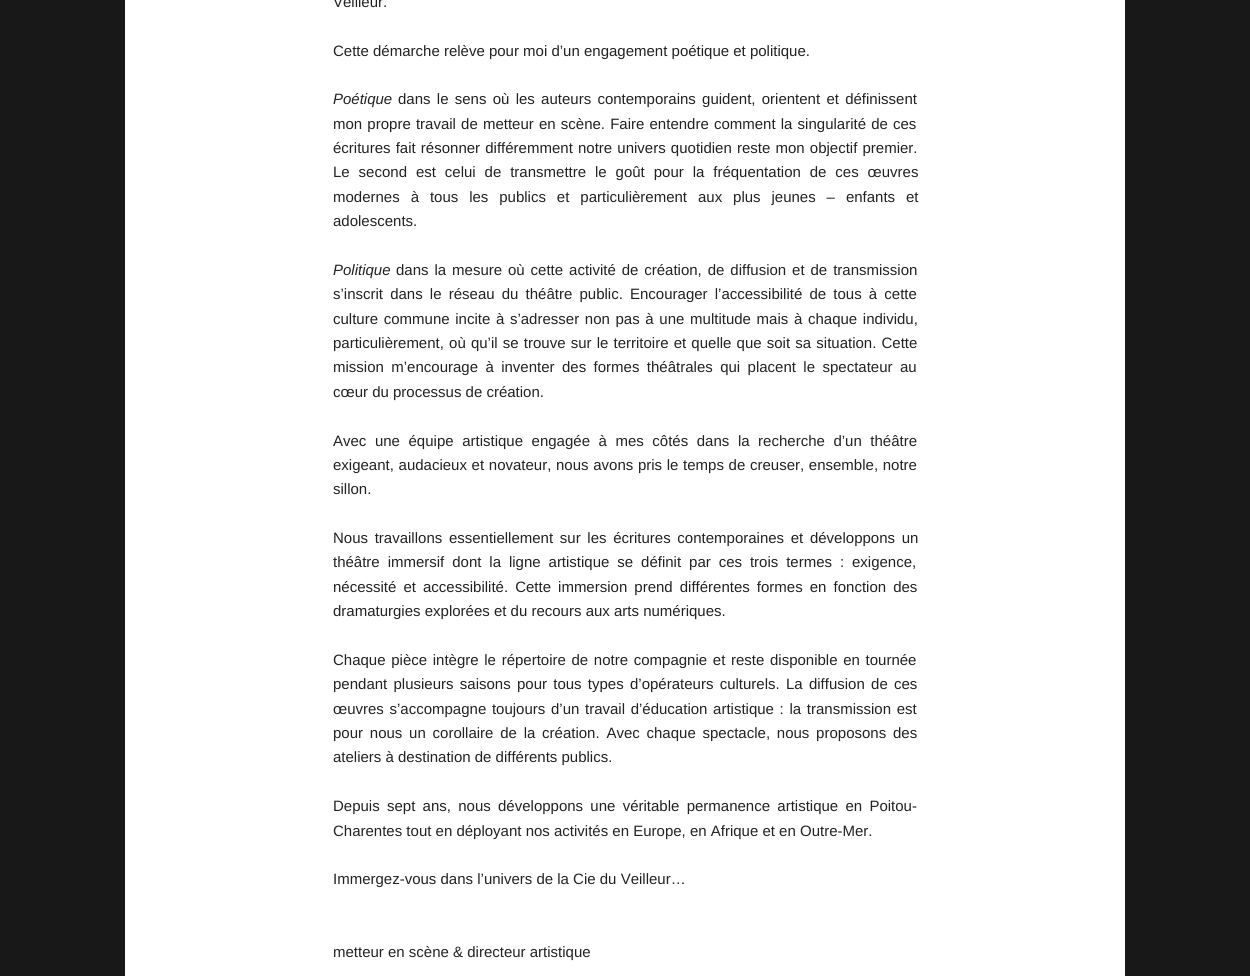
#include <cairo.h>
#include <math.h>
#include <stddef.h>


static void spaced_text(cairo_t *cr, double x, double y, const char *s, double letter, double word) {
    cairo_move_to(cr, x, y);
    while (*s) {
        char ch[5] = {0};
        int n = 0;
        do ch[n++] = *s++; while ((*s & 0xC0) == 0x80);
        cairo_show_text(cr, ch);
        cairo_rel_move_to(cr, letter + word * (*ch == ' '), 0);
    }
}

int main(void) {
    cairo_surface_t *surface = cairo_image_surface_create(CAIRO_FORMAT_RGB24, 1250, 976);
    cairo_t *cr = cairo_create(surface);
    cairo_font_options_t *options = cairo_font_options_create();
    cairo_font_options_set_hint_metrics(options, CAIRO_HINT_METRICS_OFF);
    cairo_font_options_set_hint_style(options, CAIRO_HINT_STYLE_NONE);
    cairo_set_font_options(cr, options);
    cairo_set_miter_limit(cr, 4);
    cairo_set_source_rgb(cr, 0.094, 0.094, 0.094);
    cairo_paint(cr);
    cairo_set_source_rgb(cr, 1, 1, 1);
    cairo_rectangle(cr, 125, 0, 1000, 976);
    cairo_fill(cr);
    cairo_select_font_face(cr, "Liberation Sans", CAIRO_FONT_SLANT_NORMAL, CAIRO_FONT_WEIGHT_NORMAL);
    cairo_set_font_size(cr, 15);
    cairo_set_source_rgb(cr, 0.133, 0.133, 0.133);
    cairo_move_to(cr, 333, 7);
    cairo_show_text(cr, "Veilleur.");
    cairo_move_to(cr, 333, 56);
    cairo_show_text(cr, "Cette démarche relève pour moi d’un engagement poétique et politique.");
    cairo_select_font_face(cr, "Liberation Sans", CAIRO_FONT_SLANT_ITALIC, CAIRO_FONT_WEIGHT_NORMAL);
    cairo_move_to(cr, 333, 104);
    cairo_show_text(cr, "Poétique");
    cairo_select_font_face(cr, "Liberation Sans", CAIRO_FONT_SLANT_NORMAL, CAIRO_FONT_WEIGHT_NORMAL);
    spaced_text(cr, 398, 104, "dans le sens où les auteurs contemporains guident, orientent et définissent", 0, 2.1);
    spaced_text(cr, 333, 129, "mon propre travail de metteur en scène. Faire entendre comment la singularité de ces", 0, 1);
    spaced_text(cr, 333, 153, "écritures fait résonner différemment notre univers quotidien reste mon objectif premier.", 0, 1);
    spaced_text(cr, 333, 177, "Le second est celui de transmettre le goût pour la fréquentation de ces œuvres", 0, 4.75);
    spaced_text(cr, 333, 202, "modernes à tous les publics et particulièrement aux plus jeunes – enfants et", 0, 6.75);
    cairo_move_to(cr, 333, 226);
    cairo_show_text(cr, "adolescents.");
    cairo_select_font_face(cr, "Liberation Sans", CAIRO_FONT_SLANT_ITALIC, CAIRO_FONT_WEIGHT_NORMAL);
    cairo_move_to(cr, 333, 275);
    cairo_show_text(cr, "Politique");
    cairo_select_font_face(cr, "Liberation Sans", CAIRO_FONT_SLANT_NORMAL, CAIRO_FONT_WEIGHT_NORMAL);
    spaced_text(cr, 396, 275, "dans la mesure où cette activité de création, de diffusion et de transmission", 0, 1.75);
    spaced_text(cr, 333, 299, "s’inscrit dans le réseau du théâtre public. Encourager l’accessibilité de tous à cette", 0, 3);
    spaced_text(cr, 333, 324, "culture commune incite à s’adresser non pas à une multitude mais à chaque individu,", 0, 1.5);
    spaced_text(cr, 333, 348, "particulièrement, où qu’il se trouve sur le territoire et quelle que soit sa situation. Cette", 0, 1);
    spaced_text(cr, 333, 372, "mission m’encourage à inventer des formes théâtrales qui placent le spectateur au", 0, 3.25);
    cairo_move_to(cr, 333, 397);
    cairo_show_text(cr, "cœur du processus de création.");
    spaced_text(cr, 333, 446, "Avec une équipe artistique engagée à mes côtés dans la recherche d’un théâtre", 0, 4.4);
    spaced_text(cr, 333, 470, "exigeant, audacieux et novateur, nous avons pris le temps de creuser, ensemble, notre", 0, 0.5);
    cairo_move_to(cr, 333, 494);
    cairo_show_text(cr, "sillon.");
    spaced_text(cr, 333, 543, "Nous travaillons essentiellement sur les écritures contemporaines et développons un", 0, 2.5);
    spaced_text(cr, 333, 567, "théâtre immersif dont la ligne artistique se définit par ces trois termes : exigence,", 0, 3.75);
    spaced_text(cr, 333, 592, "nécessité et accessibilité. Cette immersion prend différentes formes en fonction des", 0, 2.9);
    cairo_move_to(cr, 333, 616);
    cairo_show_text(cr, "dramaturgies explorées et du recours aux arts numériques.");
    spaced_text(cr, 333, 665, "Chaque pièce intègre le répertoire de notre compagnie et reste disponible en tournée", 0, 1.5);
    spaced_text(cr, 333, 689, "pendant plusieurs saisons pour tous types d’opérateurs culturels. La diffusion de ces", 0, 2.1);
    spaced_text(cr, 333, 714, "œuvres s’accompagne toujours d’un travail d’éducation artistique : la transmission est", 0, 1.5);
    spaced_text(cr, 333, 738, "pour nous un corollaire de la création. Avec chaque spectacle, nous proposons des", 0, 2.6);
    cairo_move_to(cr, 333, 762);
    cairo_show_text(cr, "ateliers à destination de différents publics.");
    spaced_text(cr, 333, 811, "Depuis sept ans, nous développons une véritable permanence artistique en Poitou-", 0, 3.1);
    cairo_move_to(cr, 333, 836);
    cairo_show_text(cr, "Charentes tout en déployant nos activités en Europe, en Afrique et en Outre-Mer.");
    cairo_move_to(cr, 333, 884);
    cairo_show_text(cr, "Immergez-vous dans l’univers de la Cie du Veilleur…");
    cairo_move_to(cr, 333, 957);
    cairo_show_text(cr, "metteur en scène & directeur artistique");
    cairo_surface_write_to_png(surface, "page.png");
    cairo_font_options_destroy(options);
    cairo_destroy(cr);
    cairo_surface_destroy(surface);
    return 0;
}
